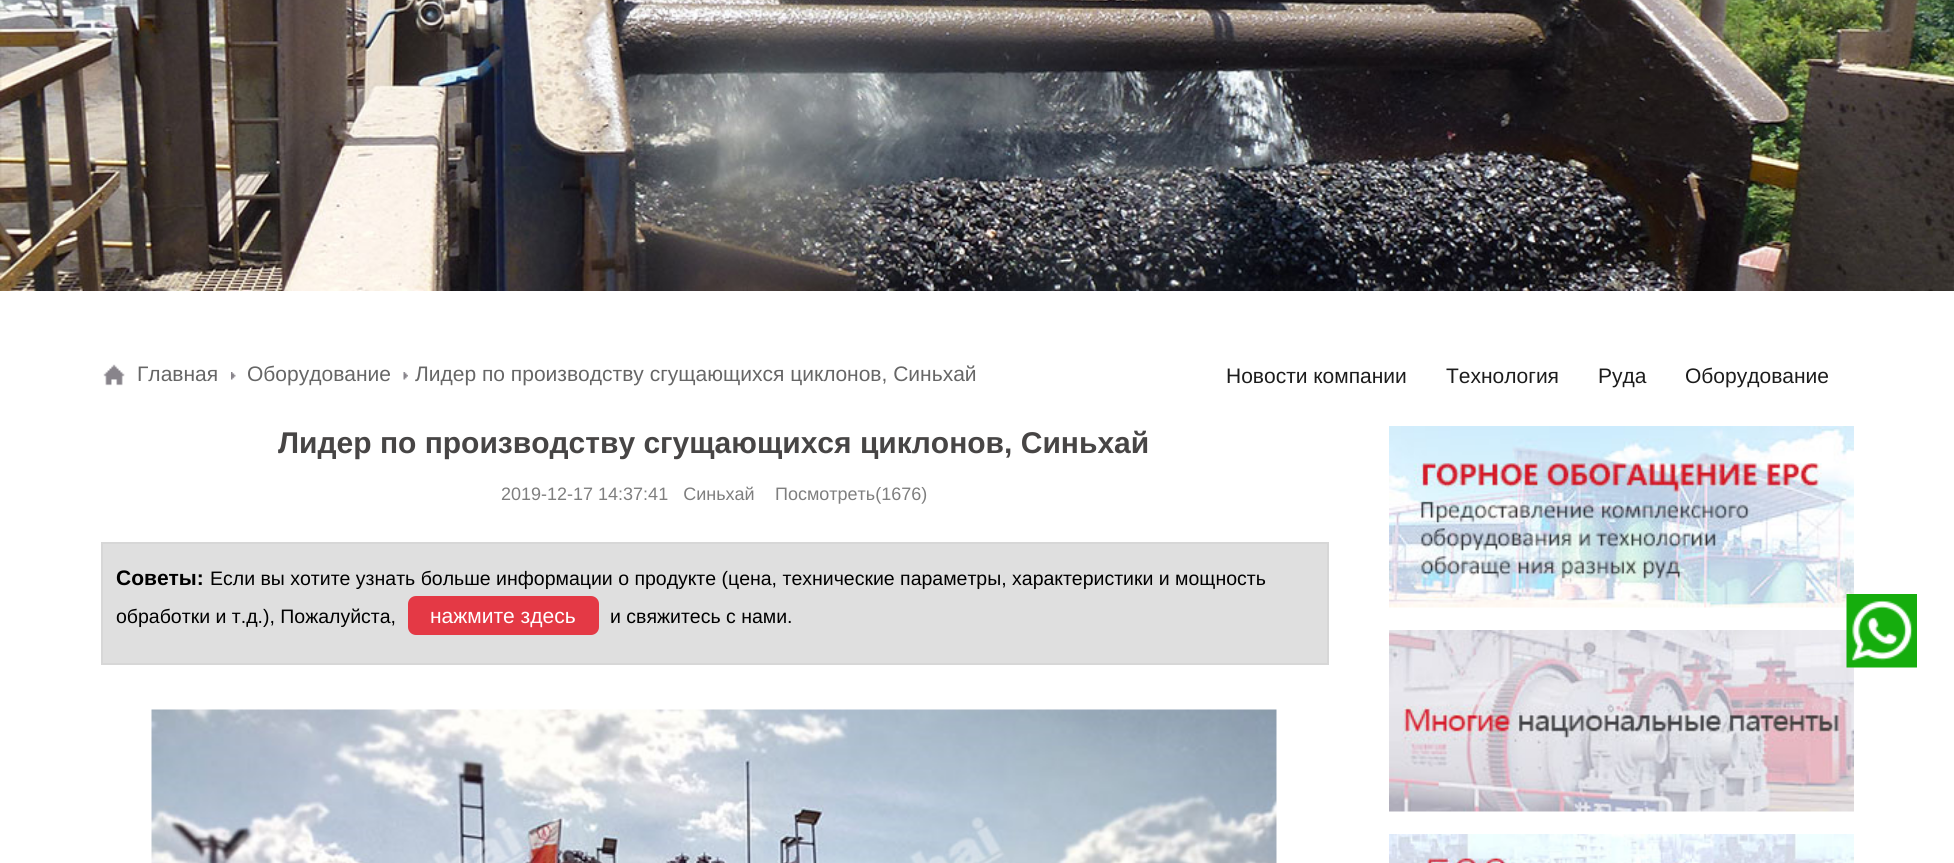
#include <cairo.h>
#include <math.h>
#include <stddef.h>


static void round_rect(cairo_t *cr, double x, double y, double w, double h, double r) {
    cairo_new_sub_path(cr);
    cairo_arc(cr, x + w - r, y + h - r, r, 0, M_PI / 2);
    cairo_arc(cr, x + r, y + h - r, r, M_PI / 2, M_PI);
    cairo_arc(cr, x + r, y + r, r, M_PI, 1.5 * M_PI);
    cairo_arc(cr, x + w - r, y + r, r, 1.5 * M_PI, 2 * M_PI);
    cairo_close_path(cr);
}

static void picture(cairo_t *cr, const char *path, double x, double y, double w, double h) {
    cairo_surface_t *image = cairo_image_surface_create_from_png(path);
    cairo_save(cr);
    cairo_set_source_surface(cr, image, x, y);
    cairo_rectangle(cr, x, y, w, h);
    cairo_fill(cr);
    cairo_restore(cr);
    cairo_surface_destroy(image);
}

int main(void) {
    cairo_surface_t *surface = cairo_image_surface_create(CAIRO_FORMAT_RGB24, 1954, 863);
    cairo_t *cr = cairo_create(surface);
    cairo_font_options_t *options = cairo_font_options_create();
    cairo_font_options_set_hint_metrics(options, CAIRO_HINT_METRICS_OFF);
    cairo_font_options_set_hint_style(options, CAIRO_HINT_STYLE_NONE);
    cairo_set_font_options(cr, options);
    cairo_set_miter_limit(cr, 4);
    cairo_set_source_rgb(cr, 1, 1, 1);
    cairo_paint(cr);
    picture(cr, "img1.png", 0, 0, 1954, 291);
    picture(cr, "img2.png", 103, 364, 22, 22);
    cairo_select_font_face(cr, "Liberation Sans", CAIRO_FONT_SLANT_NORMAL, CAIRO_FONT_WEIGHT_NORMAL);
    cairo_set_font_size(cr, 21);
    cairo_set_source_rgb(cr, 0.4, 0.4, 0.4);
    cairo_move_to(cr, 137, 381);
    cairo_show_text(cr, "Главная");
    picture(cr, "img3.png", 231, 372, 5, 8);
    cairo_move_to(cr, 247, 381);
    cairo_show_text(cr, "Оборудование");
    picture(cr, "img4.png", 403, 372, 5, 8);
    cairo_move_to(cr, 415, 381);
    cairo_show_text(cr, "Лидер по производству сгущающихся циклонов, Синьхай");
    cairo_set_source_rgb(cr, 0.11, 0.11, 0.11);
    cairo_move_to(cr, 1226, 383);
    cairo_show_text(cr, "Новости компании");
    cairo_move_to(cr, 1446, 383);
    cairo_show_text(cr, "Технология");
    cairo_move_to(cr, 1598, 383);
    cairo_show_text(cr, "Руда");
    cairo_move_to(cr, 1685, 383);
    cairo_show_text(cr, "Оборудование");
    cairo_select_font_face(cr, "Liberation Sans", CAIRO_FONT_SLANT_NORMAL, CAIRO_FONT_WEIGHT_BOLD);
    cairo_set_font_size(cr, 30);
    cairo_set_source_rgb(cr, 0.278, 0.271, 0.271);
    cairo_move_to(cr, 278, 453);
    cairo_show_text(cr, "Лидер по производству сгущающихся циклонов, Синьхай");
    cairo_select_font_face(cr, "Liberation Sans", CAIRO_FONT_SLANT_NORMAL, CAIRO_FONT_WEIGHT_NORMAL);
    cairo_set_font_size(cr, 18);
    cairo_set_source_rgb(cr, 0.494, 0.494, 0.494);
    cairo_move_to(cr, 501, 500);
    cairo_show_text(cr, "2019-12-17 14:37:41   Синьхай");
    cairo_move_to(cr, 775, 500);
    cairo_show_text(cr, "Посмотреть(1676)");
    cairo_set_source_rgb(cr, 0.875, 0.875, 0.875);
    cairo_rectangle(cr, 102, 543, 1226, 121);
    cairo_fill_preserve(cr);
    cairo_set_source_rgb(cr, 0.843, 0.843, 0.843);
    cairo_stroke(cr);
    cairo_select_font_face(cr, "Liberation Sans", CAIRO_FONT_SLANT_NORMAL, CAIRO_FONT_WEIGHT_BOLD);
    cairo_set_font_size(cr, 21);
    cairo_set_source_rgb(cr, 0, 0, 0);
    cairo_move_to(cr, 116, 585);
    cairo_show_text(cr, "Советы:");
    cairo_select_font_face(cr, "Liberation Sans", CAIRO_FONT_SLANT_NORMAL, CAIRO_FONT_WEIGHT_NORMAL);
    cairo_set_font_size(cr, 19.5);
    cairo_move_to(cr, 210, 585);
    cairo_show_text(cr, "Если вы хотите узнать больше информации о продукте (цена, технические параметры, характеристики и мощность");
    cairo_move_to(cr, 116, 623);
    cairo_show_text(cr, "обработки и т.д.), Пожалуйста,");
    cairo_set_source_rgb(cr, 0.894, 0.224, 0.271);
    round_rect(cr, 408, 596, 191, 39, 8);
    cairo_fill(cr);
    cairo_set_font_size(cr, 21);
    cairo_set_source_rgb(cr, 1, 1, 1);
    cairo_move_to(cr, 430, 623);
    cairo_show_text(cr, "нажмите здесь");
    cairo_set_font_size(cr, 19.5);
    cairo_set_source_rgb(cr, 0, 0, 0);
    cairo_move_to(cr, 610, 623);
    cairo_show_text(cr, "и свяжитесь с нами.");
    picture(cr, "img5.png", 151, 709, 1126, 154);
    picture(cr, "img6.png", 1389, 426, 465, 182);
    picture(cr, "img7.png", 1389, 630, 465, 182);
    picture(cr, "img8.png", 1389, 834, 465, 29);
    picture(cr, "img9.png", 1846, 594, 71, 74);
    cairo_surface_write_to_png(surface, "page.png");
    cairo_font_options_destroy(options);
    cairo_destroy(cr);
    cairo_surface_destroy(surface);
    return 0;
}
